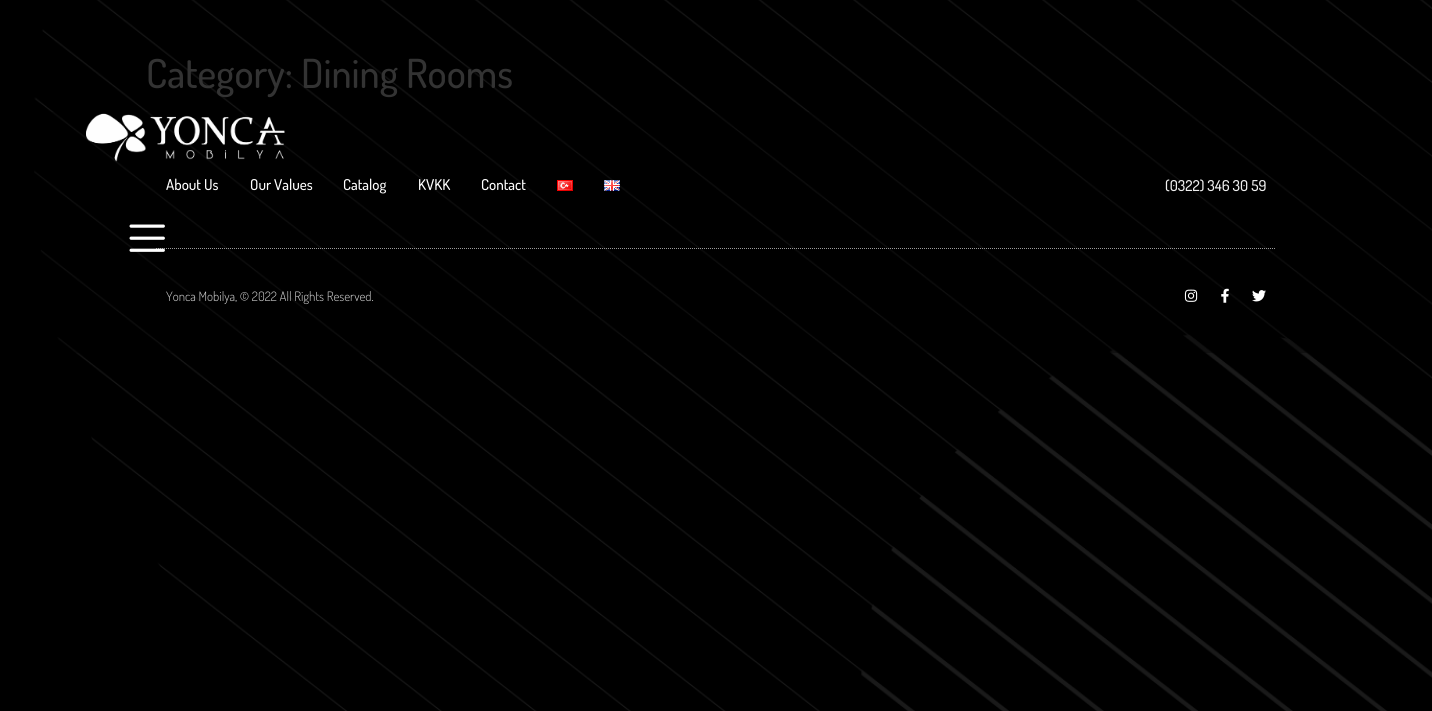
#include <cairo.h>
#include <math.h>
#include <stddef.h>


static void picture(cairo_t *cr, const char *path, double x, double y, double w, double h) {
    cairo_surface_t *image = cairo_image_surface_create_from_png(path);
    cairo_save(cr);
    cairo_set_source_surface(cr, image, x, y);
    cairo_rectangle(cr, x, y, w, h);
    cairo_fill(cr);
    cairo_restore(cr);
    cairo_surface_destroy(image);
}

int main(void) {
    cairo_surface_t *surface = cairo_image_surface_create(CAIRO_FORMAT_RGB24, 1432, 711);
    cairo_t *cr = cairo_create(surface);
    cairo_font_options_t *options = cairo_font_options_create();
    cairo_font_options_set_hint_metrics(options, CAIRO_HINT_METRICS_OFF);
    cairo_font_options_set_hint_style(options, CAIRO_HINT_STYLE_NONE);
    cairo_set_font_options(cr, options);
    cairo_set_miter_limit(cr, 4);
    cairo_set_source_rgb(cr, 0, 0, 0);
    cairo_paint(cr);
    picture(cr, "img1.png", 34, 0, 1398, 711);
    cairo_select_font_face(cr, "Dosis Medium", CAIRO_FONT_SLANT_NORMAL, CAIRO_FONT_WEIGHT_NORMAL);
    cairo_set_font_size(cr, 40);
    cairo_set_source_rgb(cr, 0.2, 0.2, 0.2);
    cairo_move_to(cr, 146, 88);
    cairo_show_text(cr, "Category: Dining Rooms");
    cairo_set_source_rgba(cr, 0, 0, 0, 0.33);
    cairo_rectangle(cr, 34, 112, 1398, 241);
    cairo_fill(cr);
    picture(cr, "img2.png", 86, 113, 199, 49);
    cairo_new_path(cr);
    cairo_move_to(cr, 156, 248.5);
    cairo_line_to(cr, 1276, 248.5);
    cairo_set_source_rgb(cr, 0.608, 0.608, 0.608);
    cairo_set_line_width(cr, 1);
    cairo_set_dash(cr, (double[]){1, 1}, 2, 0);
    cairo_stroke(cr);
    picture(cr, "img3.png", 129, 224, 36, 28);
    cairo_set_font_size(cr, 15);
    cairo_set_source_rgb(cr, 1, 1, 1);
    cairo_move_to(cr, 166, 190);
    cairo_show_text(cr, "About Us");
    cairo_move_to(cr, 250, 190);
    cairo_show_text(cr, "Our Values");
    cairo_move_to(cr, 343, 190);
    cairo_show_text(cr, "Catalog");
    cairo_move_to(cr, 418, 190);
    cairo_show_text(cr, "KVKK");
    cairo_move_to(cr, 481, 190);
    cairo_show_text(cr, "Contact");
    picture(cr, "img4.png", 557, 180, 16, 11);
    picture(cr, "img5.png", 604, 180, 16, 11);
    cairo_set_source_rgb(cr, 0.937, 0.937, 0.937);
    cairo_move_to(cr, 1165, 191);
    cairo_show_text(cr, "(0322) 346 30 59");
    cairo_select_font_face(cr, "Dosis Light", CAIRO_FONT_SLANT_NORMAL, CAIRO_FONT_WEIGHT_NORMAL);
    cairo_set_font_size(cr, 13);
    cairo_set_source_rgb(cr, 0.82, 0.82, 0.82);
    cairo_move_to(cr, 166, 301);
    cairo_show_text(cr, "Yonca Mobilya, © 2022 All Rights Reserved.");
    picture(cr, "img6.png", 1184, 289, 14, 13);
    picture(cr, "img7.png", 1221, 288, 8, 15);
    picture(cr, "img8.png", 1252, 290, 14, 12);
    cairo_surface_write_to_png(surface, "page.png");
    cairo_font_options_destroy(options);
    cairo_destroy(cr);
    cairo_surface_destroy(surface);
    return 0;
}
